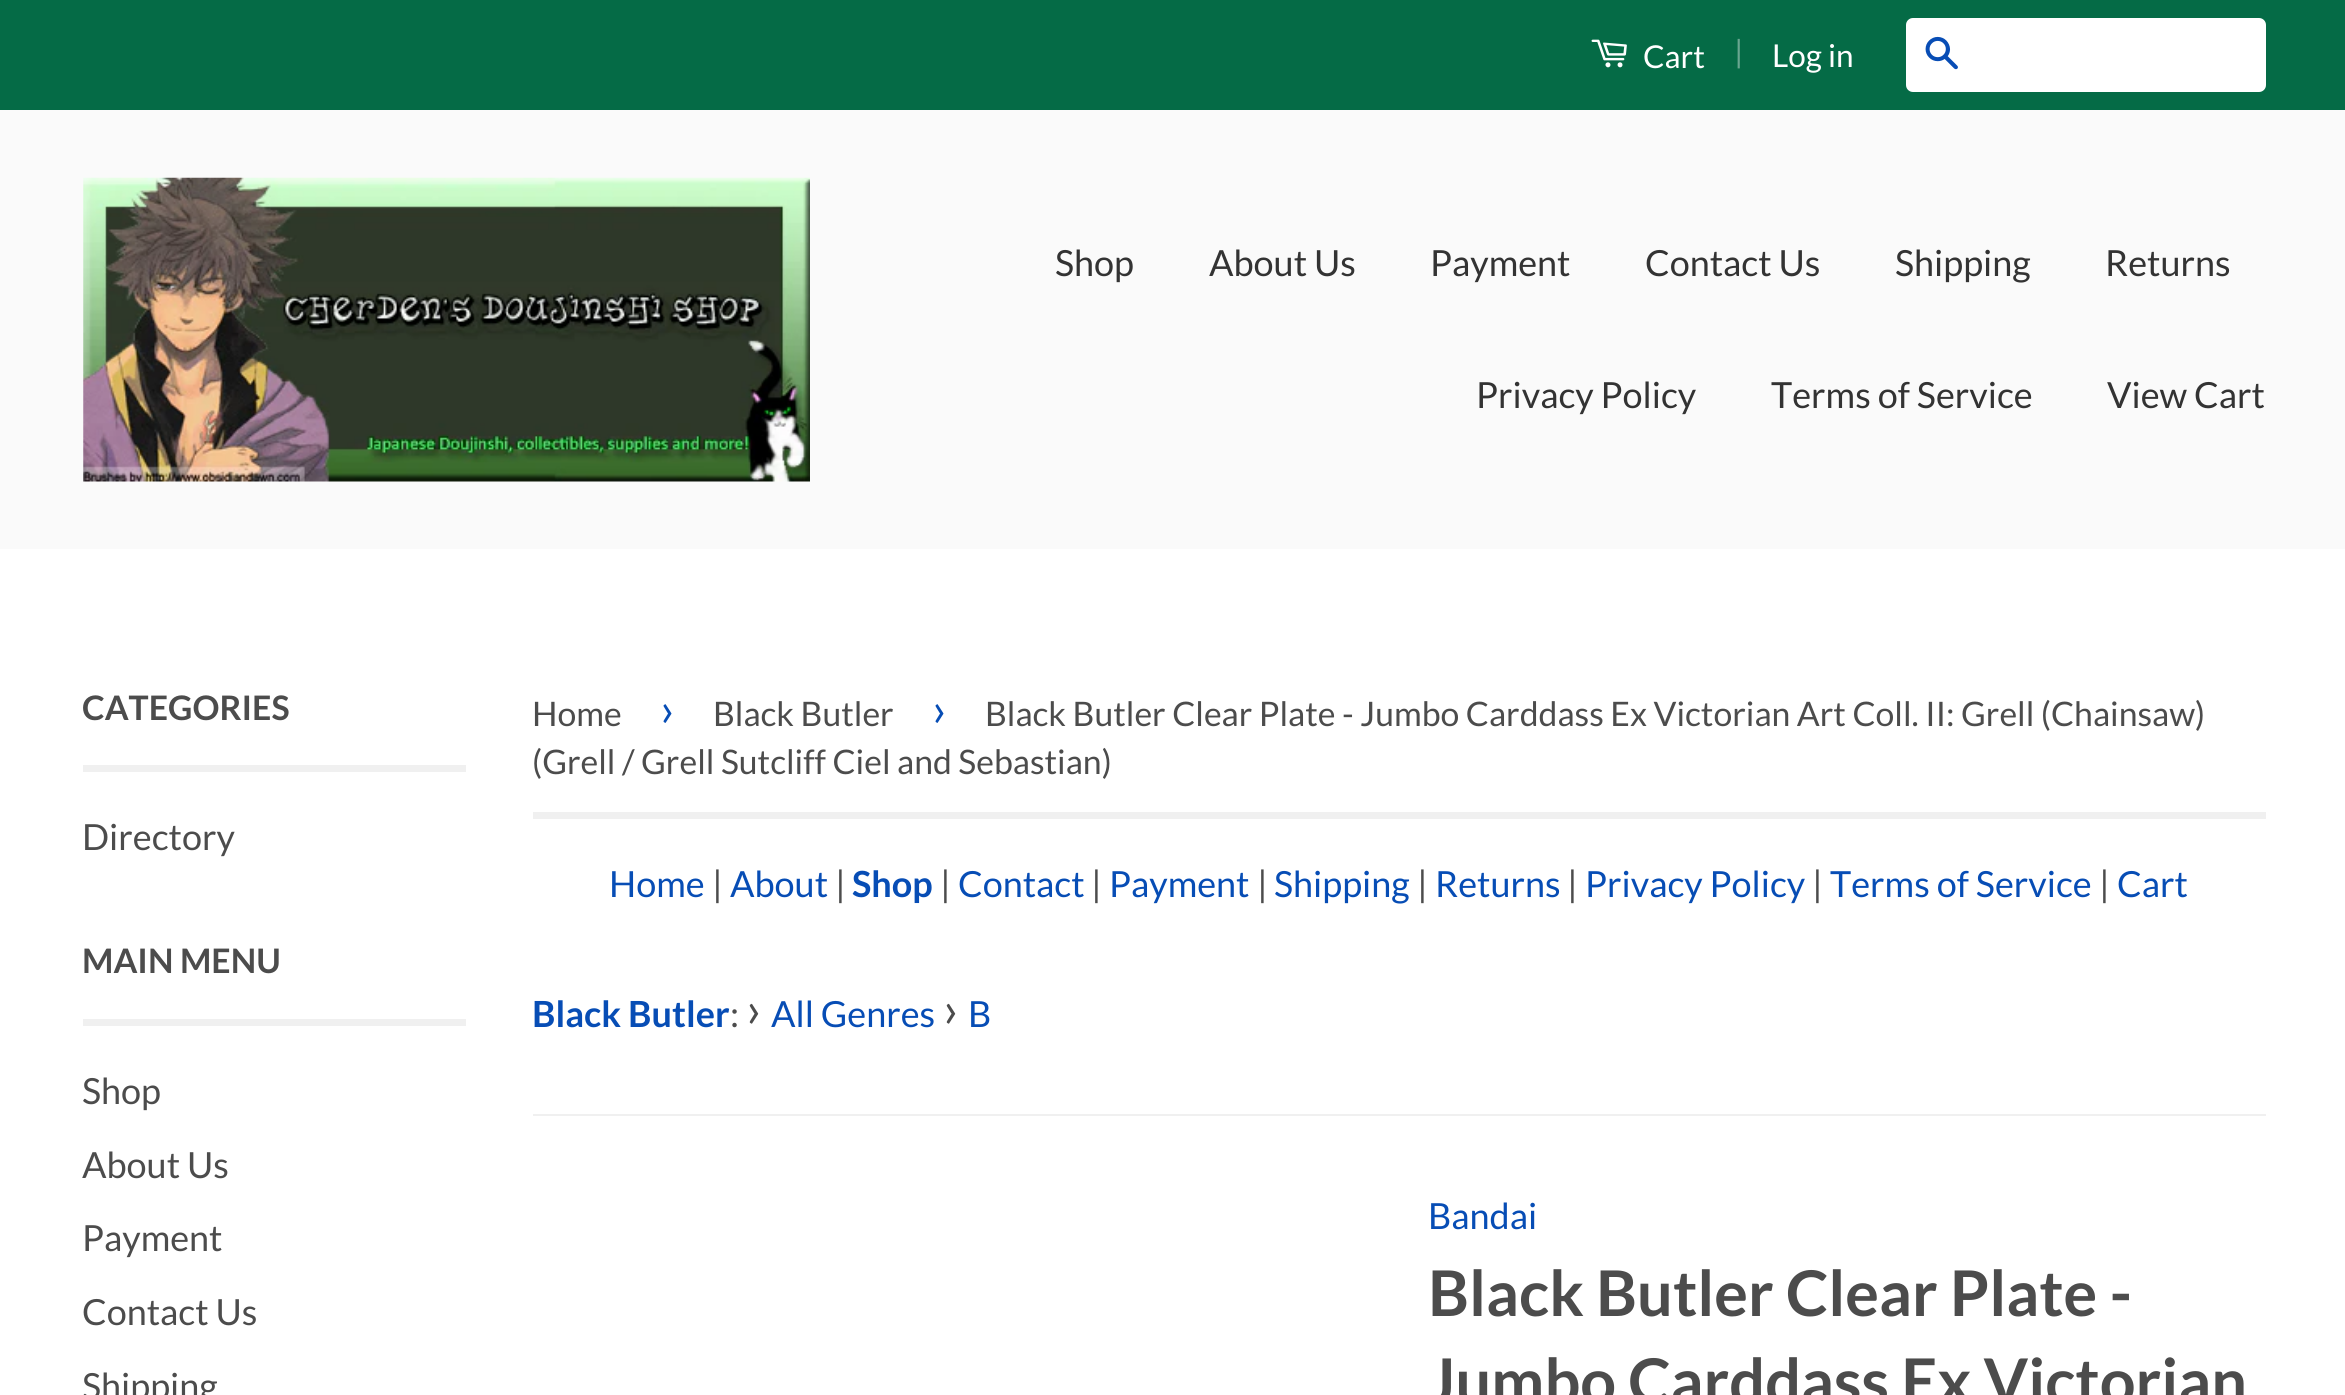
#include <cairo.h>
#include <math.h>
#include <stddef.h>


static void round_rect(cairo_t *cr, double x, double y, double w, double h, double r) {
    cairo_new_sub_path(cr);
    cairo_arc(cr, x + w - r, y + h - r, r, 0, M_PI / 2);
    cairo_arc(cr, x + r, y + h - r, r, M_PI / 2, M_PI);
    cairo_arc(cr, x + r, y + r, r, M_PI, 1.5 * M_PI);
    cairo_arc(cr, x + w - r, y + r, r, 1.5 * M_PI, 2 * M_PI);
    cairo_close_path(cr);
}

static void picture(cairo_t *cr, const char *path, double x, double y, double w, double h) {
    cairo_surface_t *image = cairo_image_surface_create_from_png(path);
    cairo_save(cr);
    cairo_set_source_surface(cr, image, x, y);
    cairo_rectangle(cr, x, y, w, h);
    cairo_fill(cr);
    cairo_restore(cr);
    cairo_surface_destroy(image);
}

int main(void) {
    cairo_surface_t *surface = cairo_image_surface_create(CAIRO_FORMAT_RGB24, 2345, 1395);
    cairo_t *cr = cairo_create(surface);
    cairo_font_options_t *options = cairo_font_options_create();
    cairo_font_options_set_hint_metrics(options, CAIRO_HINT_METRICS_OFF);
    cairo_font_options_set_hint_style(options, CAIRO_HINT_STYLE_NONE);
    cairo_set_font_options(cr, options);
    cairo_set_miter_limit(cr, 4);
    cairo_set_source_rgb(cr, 1, 1, 1);
    cairo_paint(cr);
    cairo_set_source_rgb(cr, 0.02, 0.42, 0.275);
    cairo_rectangle(cr, 0, 0, 2345, 110);
    cairo_fill(cr);
    picture(cr, "img1.png", 1591, 39, 36, 29);
    cairo_select_font_face(cr, "Lato", CAIRO_FONT_SLANT_NORMAL, CAIRO_FONT_WEIGHT_NORMAL);
    cairo_set_font_size(cr, 31.5);
    cairo_set_source_rgb(cr, 1, 1, 1);
    cairo_move_to(cr, 1643, 68);
    cairo_show_text(cr, "Cart");
    cairo_set_source_rgb(cr, 0.412, 0.651, 0.565);
    cairo_move_to(cr, 1734, 63);
    cairo_show_text(cr, "|");
    cairo_set_source_rgb(cr, 1, 1, 1);
    cairo_move_to(cr, 1772, 67);
    cairo_show_text(cr, "Log in");
    round_rect(cr, 1906, 18, 360, 74, 7);
    cairo_fill(cr);
    picture(cr, "img2.png", 1925, 36, 33, 34);
    cairo_set_source_rgb(cr, 0.98, 0.98, 0.98);
    cairo_rectangle(cr, 0, 110, 2345, 439);
    cairo_fill(cr);
    picture(cr, "img3.png", 83, 177, 727, 305);
    cairo_set_font_size(cr, 36);
    cairo_set_source_rgb(cr, 0.2, 0.2, 0.2);
    cairo_move_to(cr, 1055, 276);
    cairo_show_text(cr, "Shop");
    cairo_move_to(cr, 1209, 276);
    cairo_show_text(cr, "About Us");
    cairo_move_to(cr, 1430, 276);
    cairo_show_text(cr, "Payment");
    cairo_move_to(cr, 1645, 276);
    cairo_show_text(cr, "Contact Us");
    cairo_move_to(cr, 1895, 276);
    cairo_show_text(cr, "Shipping");
    cairo_move_to(cr, 2105, 276);
    cairo_show_text(cr, "Returns");
    cairo_move_to(cr, 1476, 408);
    cairo_show_text(cr, "Privacy Policy");
    cairo_move_to(cr, 1771, 408);
    cairo_show_text(cr, "Terms of Service");
    cairo_move_to(cr, 2107, 408);
    cairo_show_text(cr, "View Cart");
    cairo_set_source_rgb(cr, 0.941, 0.941, 0.941);
    cairo_rectangle(cr, 83, 765, 383, 7);
    cairo_fill(cr);
    cairo_select_font_face(cr, "Lato", CAIRO_FONT_SLANT_NORMAL, CAIRO_FONT_WEIGHT_BOLD);
    cairo_set_font_size(cr, 33.75);
    cairo_set_source_rgb(cr, 0.298, 0.298, 0.298);
    cairo_move_to(cr, 82, 720);
    cairo_show_text(cr, "CATEGORIES");
    cairo_select_font_face(cr, "Lato", CAIRO_FONT_SLANT_NORMAL, CAIRO_FONT_WEIGHT_NORMAL);
    cairo_set_font_size(cr, 36);
    cairo_move_to(cr, 82, 850);
    cairo_show_text(cr, "Directory");
    cairo_set_source_rgb(cr, 0.941, 0.941, 0.941);
    cairo_rectangle(cr, 83, 1019, 383, 7);
    cairo_fill(cr);
    cairo_select_font_face(cr, "Lato", CAIRO_FONT_SLANT_NORMAL, CAIRO_FONT_WEIGHT_BOLD);
    cairo_set_font_size(cr, 33.75);
    cairo_set_source_rgb(cr, 0.298, 0.298, 0.298);
    cairo_move_to(cr, 82, 973);
    cairo_show_text(cr, "MAIN MENU");
    cairo_select_font_face(cr, "Lato", CAIRO_FONT_SLANT_NORMAL, CAIRO_FONT_WEIGHT_NORMAL);
    cairo_set_font_size(cr, 36);
    cairo_move_to(cr, 82, 1104);
    cairo_show_text(cr, "Shop");
    cairo_move_to(cr, 82, 1178);
    cairo_show_text(cr, "About Us");
    cairo_move_to(cr, 82, 1251);
    cairo_show_text(cr, "Payment");
    cairo_move_to(cr, 82, 1325);
    cairo_show_text(cr, "Contact Us");
    cairo_move_to(cr, 82, 1399);
    cairo_show_text(cr, "Shipping");
    cairo_set_source_rgb(cr, 0.941, 0.941, 0.941);
    cairo_rectangle(cr, 533, 812, 1733, 7);
    cairo_fill(cr);
    cairo_set_font_size(cr, 33.75);
    cairo_set_source_rgb(cr, 0.298, 0.298, 0.298);
    cairo_move_to(cr, 532, 726);
    cairo_show_text(cr, "Home");
    cairo_set_font_size(cr, 47);
    cairo_set_source_rgb(cr, 0.031, 0.302, 0.71);
    cairo_move_to(cr, 660, 726);
    cairo_show_text(cr, "›");
    cairo_set_font_size(cr, 33.75);
    cairo_set_source_rgb(cr, 0.298, 0.298, 0.298);
    cairo_move_to(cr, 713, 726);
    cairo_show_text(cr, "Black Butler");
    cairo_set_font_size(cr, 47);
    cairo_set_source_rgb(cr, 0.031, 0.302, 0.71);
    cairo_move_to(cr, 932, 726);
    cairo_show_text(cr, "›");
    cairo_set_font_size(cr, 33.75);
    cairo_set_source_rgb(cr, 0.298, 0.298, 0.298);
    cairo_move_to(cr, 985, 726);
    cairo_show_text(cr, "Black Butler Clear Plate - Jumbo Carddass Ex Victorian Art Coll. II: Grell (Chainsaw)");
    cairo_move_to(cr, 532, 774);
    cairo_show_text(cr, "(Grell / Grell Sutcliff Ciel and Sebastian)");
    cairo_set_font_size(cr, 36);
    cairo_set_source_rgb(cr, 0.031, 0.302, 0.71);
    cairo_move_to(cr, 609, 897);
    cairo_show_text(cr, "Home");
    cairo_set_source_rgb(cr, 0.298, 0.298, 0.298);
    cairo_move_to(cr, 712, 897);
    cairo_show_text(cr, "|");
    cairo_set_source_rgb(cr, 0.031, 0.302, 0.71);
    cairo_move_to(cr, 730, 897);
    cairo_show_text(cr, "About");
    cairo_set_source_rgb(cr, 0.298, 0.298, 0.298);
    cairo_move_to(cr, 835, 897);
    cairo_show_text(cr, "|");
    cairo_select_font_face(cr, "Lato", CAIRO_FONT_SLANT_NORMAL, CAIRO_FONT_WEIGHT_BOLD);
    cairo_set_source_rgb(cr, 0.031, 0.302, 0.71);
    cairo_move_to(cr, 852, 897);
    cairo_show_text(cr, "Shop");
    cairo_select_font_face(cr, "Lato", CAIRO_FONT_SLANT_NORMAL, CAIRO_FONT_WEIGHT_NORMAL);
    cairo_set_source_rgb(cr, 0.298, 0.298, 0.298);
    cairo_move_to(cr, 940, 897);
    cairo_show_text(cr, "|");
    cairo_set_source_rgb(cr, 0.031, 0.302, 0.71);
    cairo_move_to(cr, 958, 897);
    cairo_show_text(cr, "Contact");
    cairo_set_source_rgb(cr, 0.298, 0.298, 0.298);
    cairo_move_to(cr, 1091, 897);
    cairo_show_text(cr, "|");
    cairo_set_source_rgb(cr, 0.031, 0.302, 0.71);
    cairo_move_to(cr, 1109, 897);
    cairo_show_text(cr, "Payment");
    cairo_set_source_rgb(cr, 0.298, 0.298, 0.298);
    cairo_move_to(cr, 1257, 897);
    cairo_show_text(cr, "|");
    cairo_set_source_rgb(cr, 0.031, 0.302, 0.71);
    cairo_move_to(cr, 1274, 897);
    cairo_show_text(cr, "Shipping");
    cairo_set_source_rgb(cr, 0.298, 0.298, 0.298);
    cairo_move_to(cr, 1417, 897);
    cairo_show_text(cr, "|");
    cairo_set_source_rgb(cr, 0.031, 0.302, 0.71);
    cairo_move_to(cr, 1435, 897);
    cairo_show_text(cr, "Returns");
    cairo_set_source_rgb(cr, 0.298, 0.298, 0.298);
    cairo_move_to(cr, 1567, 897);
    cairo_show_text(cr, "|");
    cairo_set_source_rgb(cr, 0.031, 0.302, 0.71);
    cairo_move_to(cr, 1585, 897);
    cairo_show_text(cr, "Privacy Policy");
    cairo_set_source_rgb(cr, 0.298, 0.298, 0.298);
    cairo_move_to(cr, 1812, 897);
    cairo_show_text(cr, "|");
    cairo_set_source_rgb(cr, 0.031, 0.302, 0.71);
    cairo_move_to(cr, 1830, 897);
    cairo_show_text(cr, "Terms of Service");
    cairo_set_source_rgb(cr, 0.298, 0.298, 0.298);
    cairo_move_to(cr, 2099, 897);
    cairo_show_text(cr, "|");
    cairo_set_source_rgb(cr, 0.031, 0.302, 0.71);
    cairo_move_to(cr, 2117, 897);
    cairo_show_text(cr, "Cart");
    cairo_select_font_face(cr, "Lato", CAIRO_FONT_SLANT_NORMAL, CAIRO_FONT_WEIGHT_BOLD);
    cairo_move_to(cr, 532, 1027);
    cairo_show_text(cr, "Black Butler");
    cairo_select_font_face(cr, "Lato", CAIRO_FONT_SLANT_NORMAL, CAIRO_FONT_WEIGHT_NORMAL);
    cairo_set_source_rgb(cr, 0.298, 0.298, 0.298);
    cairo_move_to(cr, 730, 1027);
    cairo_show_text(cr, ":");
    cairo_set_font_size(cr, 50);
    cairo_move_to(cr, 746, 1027);
    cairo_show_text(cr, "›");
    cairo_set_font_size(cr, 36);
    cairo_set_source_rgb(cr, 0.031, 0.302, 0.71);
    cairo_move_to(cr, 771, 1027);
    cairo_show_text(cr, "All Genres");
    cairo_set_font_size(cr, 50);
    cairo_set_source_rgb(cr, 0.298, 0.298, 0.298);
    cairo_move_to(cr, 943, 1027);
    cairo_show_text(cr, "›");
    cairo_set_font_size(cr, 36);
    cairo_set_source_rgb(cr, 0.031, 0.302, 0.71);
    cairo_move_to(cr, 968, 1027);
    cairo_show_text(cr, "B");
    cairo_set_source_rgb(cr, 0.941, 0.941, 0.941);
    cairo_rectangle(cr, 533, 1114, 1733, 2);
    cairo_fill(cr);
    cairo_set_source_rgb(cr, 0.031, 0.302, 0.71);
    cairo_move_to(cr, 1428, 1229);
    cairo_show_text(cr, "Bandai");
    cairo_select_font_face(cr, "Lato", CAIRO_FONT_SLANT_NORMAL, CAIRO_FONT_WEIGHT_BOLD);
    cairo_set_font_size(cr, 63);
    cairo_set_source_rgb(cr, 0.298, 0.298, 0.298);
    cairo_move_to(cr, 1428, 1316);
    cairo_show_text(cr, "Black Butler Clear Plate -");
    cairo_move_to(cr, 1428, 1404);
    cairo_show_text(cr, "Jumbo Carddass Ex Victorian");
    cairo_surface_write_to_png(surface, "page.png");
    cairo_font_options_destroy(options);
    cairo_destroy(cr);
    cairo_surface_destroy(surface);
    return 0;
}
